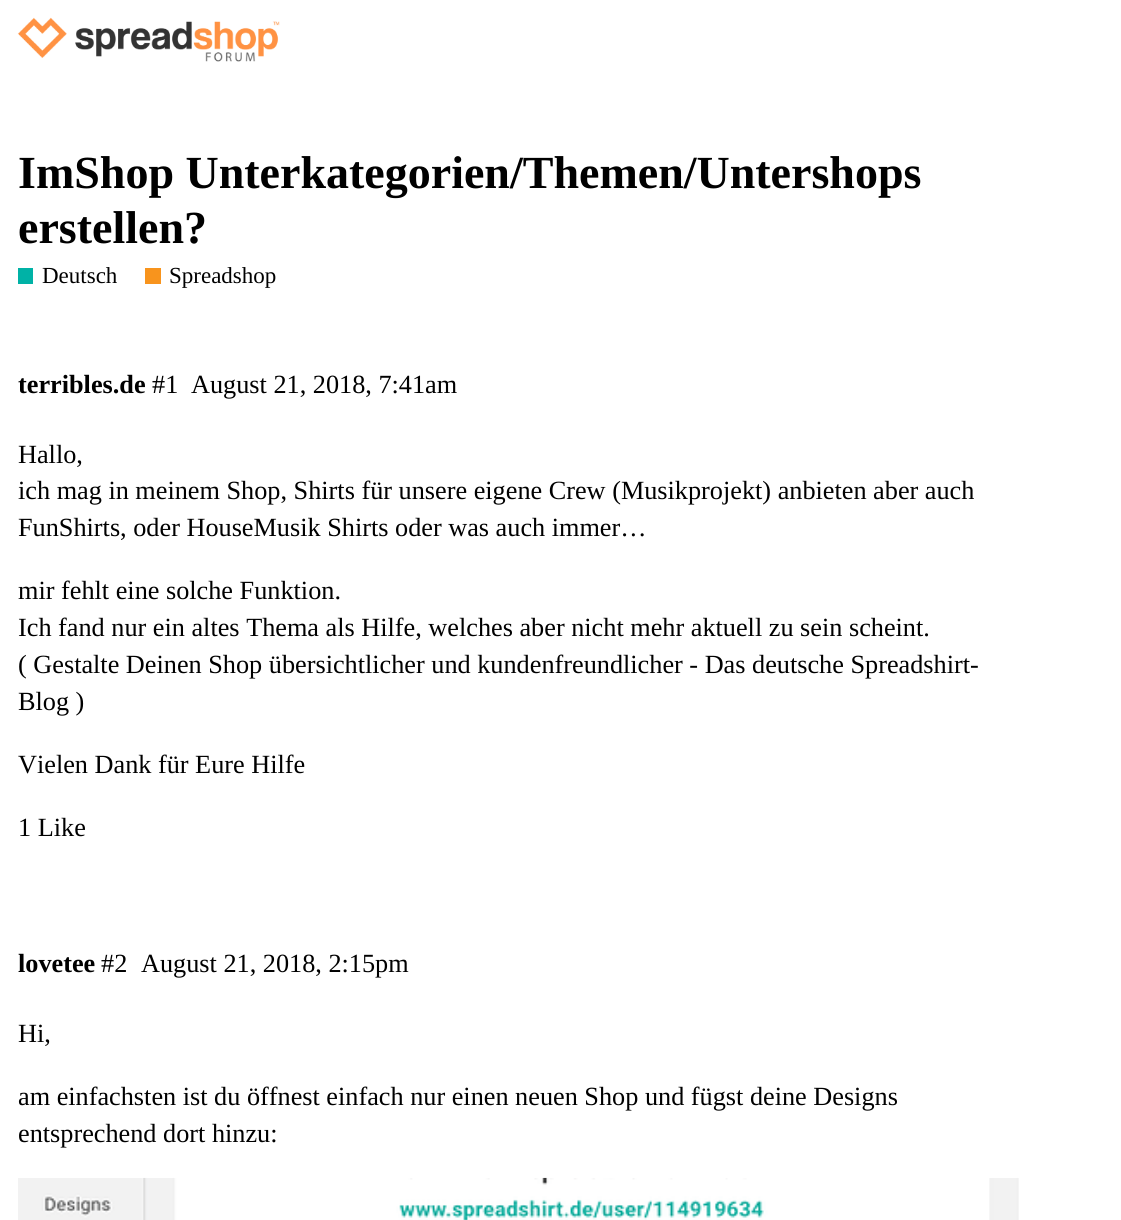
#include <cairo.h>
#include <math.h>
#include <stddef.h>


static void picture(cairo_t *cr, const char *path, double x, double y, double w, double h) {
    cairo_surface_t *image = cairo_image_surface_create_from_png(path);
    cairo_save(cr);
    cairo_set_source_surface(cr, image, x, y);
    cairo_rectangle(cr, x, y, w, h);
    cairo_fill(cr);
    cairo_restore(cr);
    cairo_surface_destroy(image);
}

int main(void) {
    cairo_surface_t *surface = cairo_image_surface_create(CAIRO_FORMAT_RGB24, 1121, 1220);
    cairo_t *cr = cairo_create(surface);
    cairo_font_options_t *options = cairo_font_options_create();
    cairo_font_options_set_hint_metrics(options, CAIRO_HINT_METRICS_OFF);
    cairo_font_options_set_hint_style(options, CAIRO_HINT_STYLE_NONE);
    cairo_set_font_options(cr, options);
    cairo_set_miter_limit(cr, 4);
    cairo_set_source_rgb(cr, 1, 1, 1);
    cairo_paint(cr);
    picture(cr, "img1.png", 17, 17, 263, 45);
    cairo_select_font_face(cr, "Liberation Serif", CAIRO_FONT_SLANT_NORMAL, CAIRO_FONT_WEIGHT_BOLD);
    cairo_set_font_size(cr, 46);
    cairo_set_source_rgb(cr, 0, 0, 0);
    cairo_move_to(cr, 18, 188);
    cairo_show_text(cr, "ImShop Unterkategorien/Themen/Untershops");
    cairo_move_to(cr, 18, 243);
    cairo_show_text(cr, "erstellen?");
    cairo_set_source_rgb(cr, 0, 0.698, 0.651);
    cairo_rectangle(cr, 18, 268, 15, 16);
    cairo_fill(cr);
    cairo_select_font_face(cr, "Liberation Serif", CAIRO_FONT_SLANT_NORMAL, CAIRO_FONT_WEIGHT_NORMAL);
    cairo_set_font_size(cr, 23);
    cairo_set_source_rgb(cr, 0, 0, 0);
    cairo_move_to(cr, 42, 283);
    cairo_show_text(cr, "Deutsch");
    cairo_set_source_rgb(cr, 0.969, 0.58, 0.114);
    cairo_rectangle(cr, 145, 268, 16, 16);
    cairo_fill(cr);
    cairo_set_source_rgb(cr, 0, 0, 0);
    cairo_move_to(cr, 169, 283);
    cairo_show_text(cr, "Spreadshop");
    cairo_select_font_face(cr, "Liberation Serif", CAIRO_FONT_SLANT_NORMAL, CAIRO_FONT_WEIGHT_BOLD);
    cairo_set_font_size(cr, 26.25);
    cairo_move_to(cr, 18, 393);
    cairo_show_text(cr, "terribles.de");
    cairo_select_font_face(cr, "Liberation Serif", CAIRO_FONT_SLANT_NORMAL, CAIRO_FONT_WEIGHT_NORMAL);
    cairo_move_to(cr, 152, 393);
    cairo_show_text(cr, "#1");
    cairo_move_to(cr, 191, 393);
    cairo_show_text(cr, "August 21, 2018, 7:41am");
    cairo_move_to(cr, 18, 463);
    cairo_show_text(cr, "Hallo,");
    cairo_move_to(cr, 18, 499);
    cairo_show_text(cr, "ich mag in meinem Shop, Shirts für unsere eigene Crew (Musikprojekt) anbieten aber auch");
    cairo_move_to(cr, 18, 536);
    cairo_show_text(cr, "FunShirts, oder HouseMusik Shirts oder was auch immer…");
    cairo_move_to(cr, 18, 599);
    cairo_show_text(cr, "mir fehlt eine solche Funktion.");
    cairo_move_to(cr, 18, 636);
    cairo_show_text(cr, "Ich fand nur ein altes Thema als Hilfe, welches aber nicht mehr aktuell zu sein scheint.");
    cairo_move_to(cr, 18, 673);
    cairo_show_text(cr, "( Gestalte Deinen Shop übersichtlicher und kundenfreundlicher - Das deutsche Spreadshirt-");
    cairo_move_to(cr, 18, 710);
    cairo_show_text(cr, "Blog )");
    cairo_move_to(cr, 18, 773);
    cairo_show_text(cr, "Vielen Dank für Eure Hilfe");
    cairo_move_to(cr, 18, 836);
    cairo_show_text(cr, "1 Like");
    cairo_select_font_face(cr, "Liberation Serif", CAIRO_FONT_SLANT_NORMAL, CAIRO_FONT_WEIGHT_BOLD);
    cairo_move_to(cr, 18, 972);
    cairo_show_text(cr, "lovetee");
    cairo_select_font_face(cr, "Liberation Serif", CAIRO_FONT_SLANT_NORMAL, CAIRO_FONT_WEIGHT_NORMAL);
    cairo_move_to(cr, 101, 972);
    cairo_show_text(cr, "#2");
    cairo_move_to(cr, 141, 972);
    cairo_show_text(cr, "August 21, 2018, 2:15pm");
    cairo_move_to(cr, 18, 1042);
    cairo_show_text(cr, "Hi,");
    cairo_move_to(cr, 18, 1105);
    cairo_show_text(cr, "am einfachsten ist du öffnest einfach nur einen neuen Shop und fügst deine Designs");
    cairo_move_to(cr, 18, 1142);
    cairo_show_text(cr, "entsprechend dort hinzu:");
    picture(cr, "img2.png", 18, 1177, 1001, 43);
    cairo_surface_write_to_png(surface, "page.png");
    cairo_font_options_destroy(options);
    cairo_destroy(cr);
    cairo_surface_destroy(surface);
    return 0;
}
